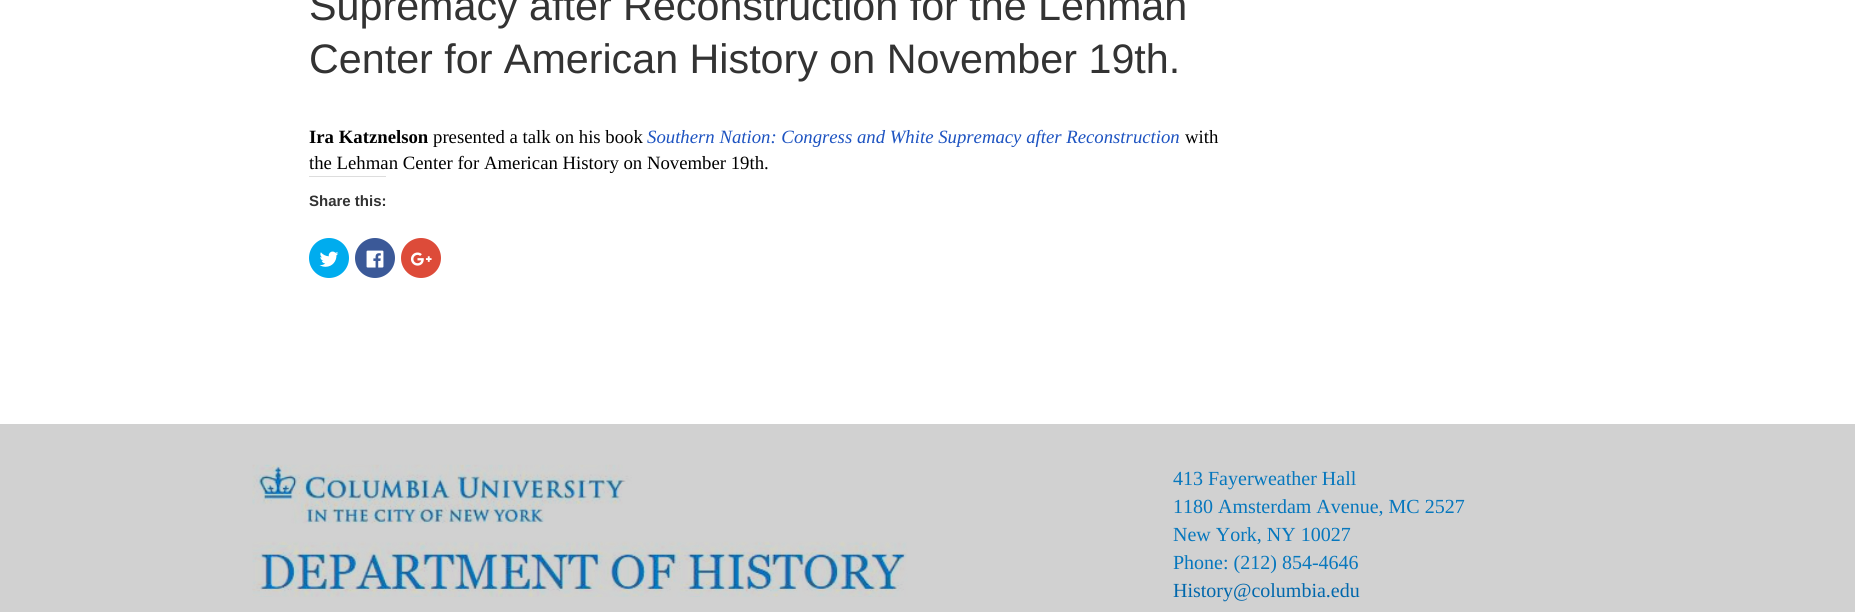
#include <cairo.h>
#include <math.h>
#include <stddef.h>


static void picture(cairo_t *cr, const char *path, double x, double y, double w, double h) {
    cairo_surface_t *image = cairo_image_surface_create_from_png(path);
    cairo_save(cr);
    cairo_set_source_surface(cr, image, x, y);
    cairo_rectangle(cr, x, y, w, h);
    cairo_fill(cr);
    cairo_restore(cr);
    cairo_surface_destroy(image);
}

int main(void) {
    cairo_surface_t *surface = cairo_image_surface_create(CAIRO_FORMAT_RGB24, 1855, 612);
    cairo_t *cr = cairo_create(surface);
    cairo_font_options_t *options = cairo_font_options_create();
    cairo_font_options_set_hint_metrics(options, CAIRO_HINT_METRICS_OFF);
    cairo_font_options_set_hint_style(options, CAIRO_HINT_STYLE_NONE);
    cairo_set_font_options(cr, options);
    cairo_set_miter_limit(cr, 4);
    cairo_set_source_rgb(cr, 1, 1, 1);
    cairo_paint(cr);
    cairo_select_font_face(cr, "Liberation Sans", CAIRO_FONT_SLANT_NORMAL, CAIRO_FONT_WEIGHT_NORMAL);
    cairo_set_font_size(cr, 41.25);
    cairo_set_source_rgb(cr, 0.2, 0.2, 0.2);
    cairo_move_to(cr, 309, 20);
    cairo_show_text(cr, "Supremacy after Reconstruction for the Lehman");
    cairo_move_to(cr, 309, 73);
    cairo_show_text(cr, "Center for American History on November 19th.");
    cairo_select_font_face(cr, "Liberation Serif", CAIRO_FONT_SLANT_NORMAL, CAIRO_FONT_WEIGHT_BOLD);
    cairo_set_font_size(cr, 18.75);
    cairo_set_source_rgb(cr, 0, 0, 0);
    cairo_move_to(cr, 309, 143);
    cairo_show_text(cr, "Ira Katznelson");
    cairo_select_font_face(cr, "Liberation Serif", CAIRO_FONT_SLANT_NORMAL, CAIRO_FONT_WEIGHT_NORMAL);
    cairo_move_to(cr, 433, 143);
    cairo_show_text(cr, "presented a talk on his book");
    cairo_select_font_face(cr, "Liberation Serif", CAIRO_FONT_SLANT_ITALIC, CAIRO_FONT_WEIGHT_NORMAL);
    cairo_set_source_rgb(cr, 0.114, 0.325, 0.757);
    cairo_move_to(cr, 647, 143);
    cairo_show_text(cr, "Southern Nation: Congress and White Supremacy after Reconstruction");
    cairo_select_font_face(cr, "Liberation Serif", CAIRO_FONT_SLANT_NORMAL, CAIRO_FONT_WEIGHT_NORMAL);
    cairo_set_source_rgb(cr, 0, 0, 0);
    cairo_move_to(cr, 1185, 143);
    cairo_show_text(cr, "with");
    cairo_move_to(cr, 309, 169);
    cairo_show_text(cr, "the Lehman Center for American History on November 19th.");
    cairo_set_source_rgb(cr, 0.867, 0.867, 0.867);
    cairo_rectangle(cr, 309, 176, 77, 1);
    cairo_fill(cr);
    cairo_select_font_face(cr, "Liberation Sans", CAIRO_FONT_SLANT_NORMAL, CAIRO_FONT_WEIGHT_BOLD);
    cairo_set_font_size(cr, 15);
    cairo_set_source_rgb(cr, 0.2, 0.2, 0.2);
    cairo_move_to(cr, 309, 206);
    cairo_show_text(cr, "Share this:");
    cairo_set_source_rgb(cr, 0, 0.675, 0.933);
    cairo_new_path(cr);
    cairo_arc(cr, 329, 258, 20, 0, 2 * M_PI);
    cairo_fill(cr);
    picture(cr, "img1.png", 319, 251, 20, 16);
    cairo_set_source_rgb(cr, 0.231, 0.349, 0.596);
    cairo_arc(cr, 375, 258, 20, 0, 2 * M_PI);
    cairo_fill(cr);
    picture(cr, "img2.png", 366, 250, 18, 18);
    cairo_set_source_rgb(cr, 0.867, 0.294, 0.224);
    cairo_arc(cr, 421, 258, 20, 0, 2 * M_PI);
    cairo_fill(cr);
    picture(cr, "img3.png", 410, 252, 22, 14);
    cairo_set_source_rgb(cr, 0.82, 0.82, 0.82);
    cairo_rectangle(cr, 0, 424, 1855, 188);
    cairo_fill(cr);
    picture(cr, "img4.png", 252, 464, 656, 133);
    cairo_select_font_face(cr, "Liberation Serif", CAIRO_FONT_SLANT_NORMAL, CAIRO_FONT_WEIGHT_NORMAL);
    cairo_set_font_size(cr, 20);
    cairo_set_source_rgb(cr, 0.024, 0.467, 0.741);
    cairo_move_to(cr, 1173, 485);
    cairo_show_text(cr, "413 Fayerweather Hall");
    cairo_move_to(cr, 1173, 513);
    cairo_show_text(cr, "1180 Amsterdam Avenue, MC 2527");
    cairo_move_to(cr, 1173, 541);
    cairo_show_text(cr, "New York, NY 10027");
    cairo_move_to(cr, 1173, 569);
    cairo_show_text(cr, "Phone: (212) 854-4646");
    cairo_set_source_rgb(cr, 0, 0.404, 0.675);
    cairo_move_to(cr, 1173, 597);
    cairo_show_text(cr, "History@columbia.edu");
    cairo_surface_write_to_png(surface, "page.png");
    cairo_font_options_destroy(options);
    cairo_destroy(cr);
    cairo_surface_destroy(surface);
    return 0;
}
